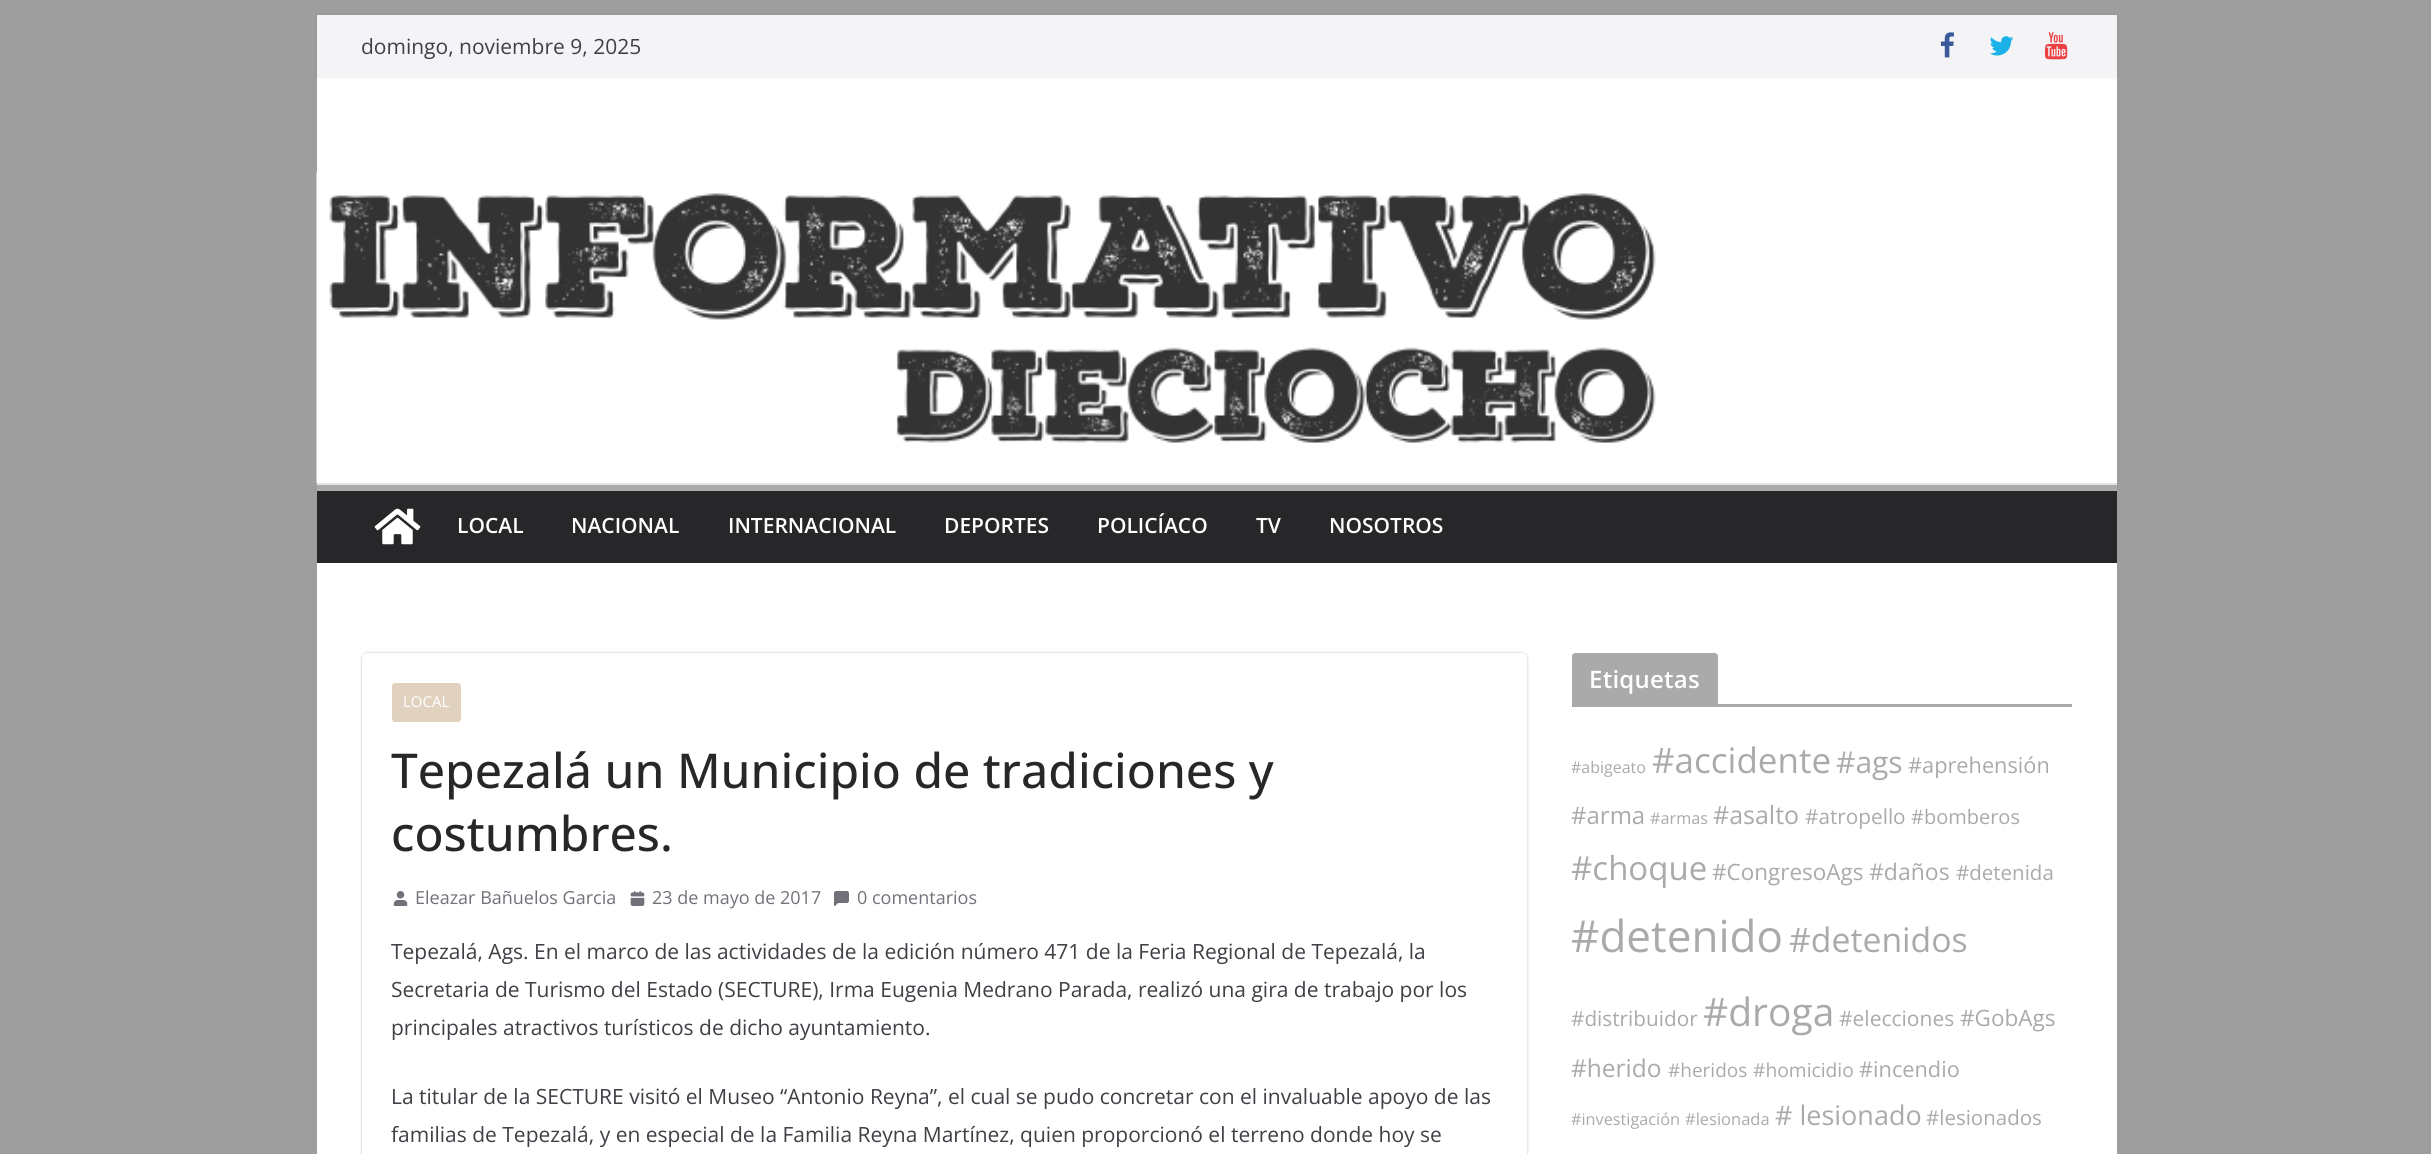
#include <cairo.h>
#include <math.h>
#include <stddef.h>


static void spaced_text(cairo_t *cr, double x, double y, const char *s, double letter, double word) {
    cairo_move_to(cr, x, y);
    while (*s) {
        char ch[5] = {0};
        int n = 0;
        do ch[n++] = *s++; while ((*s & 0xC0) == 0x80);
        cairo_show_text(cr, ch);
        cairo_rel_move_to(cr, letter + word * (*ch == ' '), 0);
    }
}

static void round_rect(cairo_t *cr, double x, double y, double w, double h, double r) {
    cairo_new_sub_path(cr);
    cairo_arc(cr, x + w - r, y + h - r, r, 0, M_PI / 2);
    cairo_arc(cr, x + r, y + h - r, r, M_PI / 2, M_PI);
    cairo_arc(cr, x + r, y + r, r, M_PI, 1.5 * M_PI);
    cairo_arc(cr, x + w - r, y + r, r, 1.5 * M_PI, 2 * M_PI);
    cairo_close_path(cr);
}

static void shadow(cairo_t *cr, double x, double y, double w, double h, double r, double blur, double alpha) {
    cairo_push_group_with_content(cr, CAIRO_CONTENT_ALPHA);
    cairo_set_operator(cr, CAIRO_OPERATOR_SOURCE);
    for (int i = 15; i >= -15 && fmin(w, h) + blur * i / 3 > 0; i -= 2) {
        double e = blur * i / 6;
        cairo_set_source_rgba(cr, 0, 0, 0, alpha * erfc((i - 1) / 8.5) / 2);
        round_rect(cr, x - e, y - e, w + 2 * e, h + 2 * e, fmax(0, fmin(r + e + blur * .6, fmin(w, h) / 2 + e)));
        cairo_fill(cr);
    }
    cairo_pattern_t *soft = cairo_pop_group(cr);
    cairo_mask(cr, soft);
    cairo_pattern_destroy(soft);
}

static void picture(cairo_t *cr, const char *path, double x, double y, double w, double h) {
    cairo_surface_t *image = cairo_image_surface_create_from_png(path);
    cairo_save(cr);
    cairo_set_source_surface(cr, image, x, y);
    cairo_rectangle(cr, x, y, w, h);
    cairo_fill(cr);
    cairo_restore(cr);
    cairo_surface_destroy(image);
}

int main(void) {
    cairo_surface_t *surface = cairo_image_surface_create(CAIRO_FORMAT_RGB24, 2431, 1154);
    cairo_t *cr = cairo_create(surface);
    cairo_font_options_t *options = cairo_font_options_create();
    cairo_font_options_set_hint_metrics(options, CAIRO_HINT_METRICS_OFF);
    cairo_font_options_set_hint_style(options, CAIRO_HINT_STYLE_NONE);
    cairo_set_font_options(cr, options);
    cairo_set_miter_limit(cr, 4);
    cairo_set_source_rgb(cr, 0.62, 0.62, 0.62);
    cairo_paint(cr);
    cairo_set_source_rgb(cr, 1, 1, 1);
    cairo_rectangle(cr, 317, 77, 1800, 406);
    cairo_fill(cr);
    cairo_set_source_rgb(cr, 0, 0, 0);
    shadow(cr, 317, 15, 1800, 62, 0, 1.5, 0.1);
    cairo_set_source_rgb(cr, 0.957, 0.957, 0.961);
    cairo_rectangle(cr, 317, 15, 1800, 62);
    cairo_fill(cr);
    cairo_select_font_face(cr, "Open Sans", CAIRO_FONT_SLANT_NORMAL, CAIRO_FONT_WEIGHT_NORMAL);
    cairo_set_font_size(cr, 21);
    cairo_set_source_rgb(cr, 0.247, 0.247, 0.275);
    cairo_move_to(cr, 361, 54);
    cairo_show_text(cr, "domingo, noviembre 9, 2025");
    picture(cr, "img1.png", 1940, 32, 14, 26);
    picture(cr, "img2.png", 1989, 36, 25, 20);
    picture(cr, "img3.png", 2044, 32, 24, 28);
    picture(cr, "img4.png", 316, 172, 1340, 311);
    cairo_set_source_rgb(cr, 0.894, 0.894, 0.906);
    cairo_rectangle(cr, 317, 483, 1800, 2);
    cairo_fill(cr);
    cairo_set_source_rgb(cr, 0.153, 0.153, 0.165);
    cairo_rectangle(cr, 317, 491, 1800, 72);
    cairo_fill(cr);
    cairo_set_source_rgb(cr, 0.667, 0.667, 0.667);
    cairo_rectangle(cr, 317, 485, 1800, 6);
    cairo_fill(cr);
    picture(cr, "img5.png", 374, 508, 47, 37);
    cairo_select_font_face(cr, "Open Sans SemiBold", CAIRO_FONT_SLANT_NORMAL, CAIRO_FONT_WEIGHT_NORMAL);
    cairo_set_source_rgb(cr, 1, 1, 1);
    cairo_move_to(cr, 457, 533);
    cairo_show_text(cr, "LOCAL");
    cairo_move_to(cr, 571, 533);
    cairo_show_text(cr, "NACIONAL");
    cairo_move_to(cr, 728, 533);
    cairo_show_text(cr, "INTERNACIONAL");
    cairo_move_to(cr, 944, 533);
    cairo_show_text(cr, "DEPORTES");
    cairo_move_to(cr, 1097, 533);
    cairo_show_text(cr, "POLICÍACO");
    cairo_move_to(cr, 1256, 533);
    cairo_show_text(cr, "TV");
    cairo_move_to(cr, 1329, 533);
    cairo_show_text(cr, "NOSOTROS");
    cairo_rectangle(cr, 317, 563, 1800, 591);
    cairo_fill(cr);
    cairo_save(cr);
    cairo_set_fill_rule(cr, CAIRO_FILL_RULE_EVEN_ODD);
    cairo_new_path(cr);
    cairo_move_to(cr, 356, 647);
    cairo_line_to(cr, 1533, 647);
    cairo_line_to(cr, 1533, 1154);
    cairo_line_to(cr, 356, 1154);
    cairo_close_path(cr);
    cairo_move_to(cr, 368, 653);
    cairo_line_to(cr, 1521, 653);
    cairo_curve_to(cr, 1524.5, 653, 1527, 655.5, 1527, 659);
    cairo_line_to(cr, 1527, 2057);
    cairo_curve_to(cr, 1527, 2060.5, 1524.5, 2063, 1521, 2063);
    cairo_line_to(cr, 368, 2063);
    cairo_curve_to(cr, 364.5, 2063, 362, 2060.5, 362, 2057);
    cairo_line_to(cr, 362, 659);
    cairo_curve_to(cr, 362, 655.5, 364.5, 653, 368, 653);
    cairo_close_path(cr);
    cairo_clip(cr);
    cairo_set_source_rgb(cr, 0, 0, 0);
    shadow(cr, 362, 653, 1165, 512, 6, 1.5, 0.24);
    cairo_restore(cr);
    cairo_set_source_rgb(cr, 0.882, 0.824, 0.749);
    round_rect(cr, 392, 683, 69, 39, 3);
    cairo_fill(cr);
    cairo_select_font_face(cr, "Open Sans", CAIRO_FONT_SLANT_NORMAL, CAIRO_FONT_WEIGHT_NORMAL);
    cairo_set_font_size(cr, 15);
    cairo_set_source_rgb(cr, 1, 1, 1);
    cairo_move_to(cr, 403, 707);
    cairo_show_text(cr, "LOCAL");
    cairo_select_font_face(cr, "Open Sans Medium", CAIRO_FONT_SLANT_NORMAL, CAIRO_FONT_WEIGHT_NORMAL);
    cairo_set_font_size(cr, 48);
    cairo_set_source_rgb(cr, 0.153, 0.153, 0.165);
    cairo_move_to(cr, 391, 788);
    cairo_show_text(cr, "Tepezalá un Municipio de tradiciones y");
    cairo_move_to(cr, 391, 851);
    cairo_show_text(cr, "costumbres.");
    picture(cr, "img6.png", 393, 891, 15, 15);
    cairo_select_font_face(cr, "Open Sans", CAIRO_FONT_SLANT_NORMAL, CAIRO_FONT_WEIGHT_NORMAL);
    cairo_set_font_size(cr, 18);
    cairo_set_source_rgb(cr, 0.443, 0.443, 0.478);
    cairo_move_to(cr, 415, 904);
    cairo_show_text(cr, "Eleazar Bañuelos Garcia");
    picture(cr, "img7.png", 630, 891, 15, 15);
    cairo_move_to(cr, 652, 904);
    cairo_show_text(cr, "23 de mayo de 2017");
    picture(cr, "img8.png", 834, 891, 15, 15);
    cairo_move_to(cr, 857, 904);
    cairo_show_text(cr, "0 comentarios");
    cairo_set_font_size(cr, 21);
    cairo_set_source_rgb(cr, 0.247, 0.247, 0.275);
    cairo_move_to(cr, 391, 959);
    cairo_show_text(cr, "Tepezalá, Ags. En el marco de las actividades de la edición número 471 de la Feria Regional de Tepezalá, la");
    cairo_move_to(cr, 391, 997);
    cairo_show_text(cr, "Secretaria de Turismo del Estado (SECTURE), Irma Eugenia Medrano Parada, realizó una gira de trabajo por los");
    cairo_move_to(cr, 391, 1035);
    cairo_show_text(cr, "principales atractivos turísticos de dicho ayuntamiento.");
    cairo_move_to(cr, 391, 1104);
    cairo_show_text(cr, "La titular de la SECTURE visitó el Museo “Antonio Reyna”, el cual se pudo concretar con el invaluable apoyo de las");
    cairo_move_to(cr, 391, 1142);
    cairo_show_text(cr, "familias de Tepezalá, y en especial de la Familia Reyna Martínez, quien proporcionó el terreno donde hoy se");
    cairo_set_source_rgb(cr, 0.667, 0.667, 0.667);
    cairo_rectangle(cr, 1572, 704, 500, 3);
    cairo_fill(cr);
    cairo_new_path(cr);
    cairo_move_to(cr, 1575, 653);
    cairo_line_to(cr, 1715, 653);
    cairo_curve_to(cr, 1716.5, 653, 1718, 654.5, 1718, 656);
    cairo_line_to(cr, 1718, 704);
    cairo_line_to(cr, 1572, 704);
    cairo_line_to(cr, 1572, 656);
    cairo_curve_to(cr, 1572, 654.5, 1573.5, 653, 1575, 653);
    cairo_close_path(cr);
    cairo_fill(cr);
    cairo_select_font_face(cr, "Open Sans SemiBold", CAIRO_FONT_SLANT_NORMAL, CAIRO_FONT_WEIGHT_NORMAL);
    cairo_set_font_size(cr, 24);
    cairo_set_source_rgb(cr, 1, 1, 1);
    spaced_text(cr, 1589, 688, "Etiquetas", 0.25, 0);
    cairo_select_font_face(cr, "Open Sans", CAIRO_FONT_SLANT_NORMAL, CAIRO_FONT_WEIGHT_NORMAL);
    cairo_set_font_size(cr, 16);
    cairo_set_source_rgb(cr, 0.667, 0.667, 0.667);
    cairo_move_to(cr, 1571, 773);
    cairo_show_text(cr, "#abigeato");
    cairo_set_font_size(cr, 35);
    cairo_move_to(cr, 1652, 773);
    cairo_show_text(cr, "#accidente");
    cairo_set_font_size(cr, 30);
    cairo_move_to(cr, 1836, 773);
    cairo_show_text(cr, "#ags");
    cairo_set_font_size(cr, 21.75);
    cairo_move_to(cr, 1908, 773);
    cairo_show_text(cr, "#aprehensión");
    cairo_set_font_size(cr, 24);
    cairo_move_to(cr, 1571, 824);
    cairo_show_text(cr, "#arma");
    cairo_set_font_size(cr, 16.25);
    cairo_move_to(cr, 1650, 824);
    cairo_show_text(cr, "#armas");
    cairo_set_font_size(cr, 25);
    cairo_move_to(cr, 1713, 824);
    cairo_show_text(cr, "#asalto");
    cairo_set_font_size(cr, 20.75);
    cairo_move_to(cr, 1805, 824);
    cairo_show_text(cr, "#atropello");
    cairo_set_font_size(cr, 20);
    cairo_move_to(cr, 1911, 824);
    cairo_show_text(cr, "#bomberos");
    cairo_set_font_size(cr, 33);
    cairo_move_to(cr, 1571, 880);
    cairo_show_text(cr, "#choque");
    cairo_set_font_size(cr, 22.5);
    cairo_move_to(cr, 1712, 880);
    cairo_show_text(cr, "#CongresoAgs");
    cairo_set_font_size(cr, 23);
    cairo_move_to(cr, 1869, 880);
    cairo_show_text(cr, "#daños");
    cairo_set_font_size(cr, 20.5);
    cairo_move_to(cr, 1956, 880);
    cairo_show_text(cr, "#detenida");
    cairo_set_font_size(cr, 44);
    cairo_move_to(cr, 1571, 952);
    cairo_show_text(cr, "#detenido");
    cairo_set_font_size(cr, 33.75);
    cairo_move_to(cr, 1789, 952);
    cairo_show_text(cr, "#detenidos");
    cairo_set_font_size(cr, 20.75);
    cairo_move_to(cr, 1571, 1026);
    cairo_show_text(cr, "#distribuidor");
    cairo_set_font_size(cr, 39);
    cairo_move_to(cr, 1703, 1026);
    cairo_show_text(cr, "#droga");
    cairo_set_font_size(cr, 21);
    cairo_move_to(cr, 1839, 1026);
    cairo_show_text(cr, "#elecciones");
    cairo_set_font_size(cr, 22.5);
    cairo_move_to(cr, 1960, 1026);
    cairo_show_text(cr, "#GobAgs");
    cairo_set_font_size(cr, 24.5);
    cairo_move_to(cr, 1571, 1077);
    cairo_show_text(cr, "#herido");
    cairo_set_font_size(cr, 19);
    cairo_move_to(cr, 1668, 1077);
    cairo_show_text(cr, "#heridos");
    cairo_set_font_size(cr, 19.25);
    cairo_move_to(cr, 1753, 1077);
    cairo_show_text(cr, "#homicidio");
    cairo_set_font_size(cr, 21.75);
    cairo_move_to(cr, 1859, 1077);
    cairo_show_text(cr, "#incendio");
    cairo_set_font_size(cr, 16.25);
    cairo_move_to(cr, 1571, 1125);
    cairo_show_text(cr, "#investigación");
    cairo_set_font_size(cr, 16.5);
    cairo_move_to(cr, 1685, 1125);
    cairo_show_text(cr, "#lesionada");
    cairo_set_font_size(cr, 27);
    cairo_move_to(cr, 1775, 1125);
    cairo_show_text(cr, "# lesionado");
    cairo_set_font_size(cr, 20.5);
    cairo_move_to(cr, 1926, 1125);
    cairo_show_text(cr, "#lesionados");
    cairo_surface_write_to_png(surface, "page.png");
    cairo_font_options_destroy(options);
    cairo_destroy(cr);
    cairo_surface_destroy(surface);
    return 0;
}
